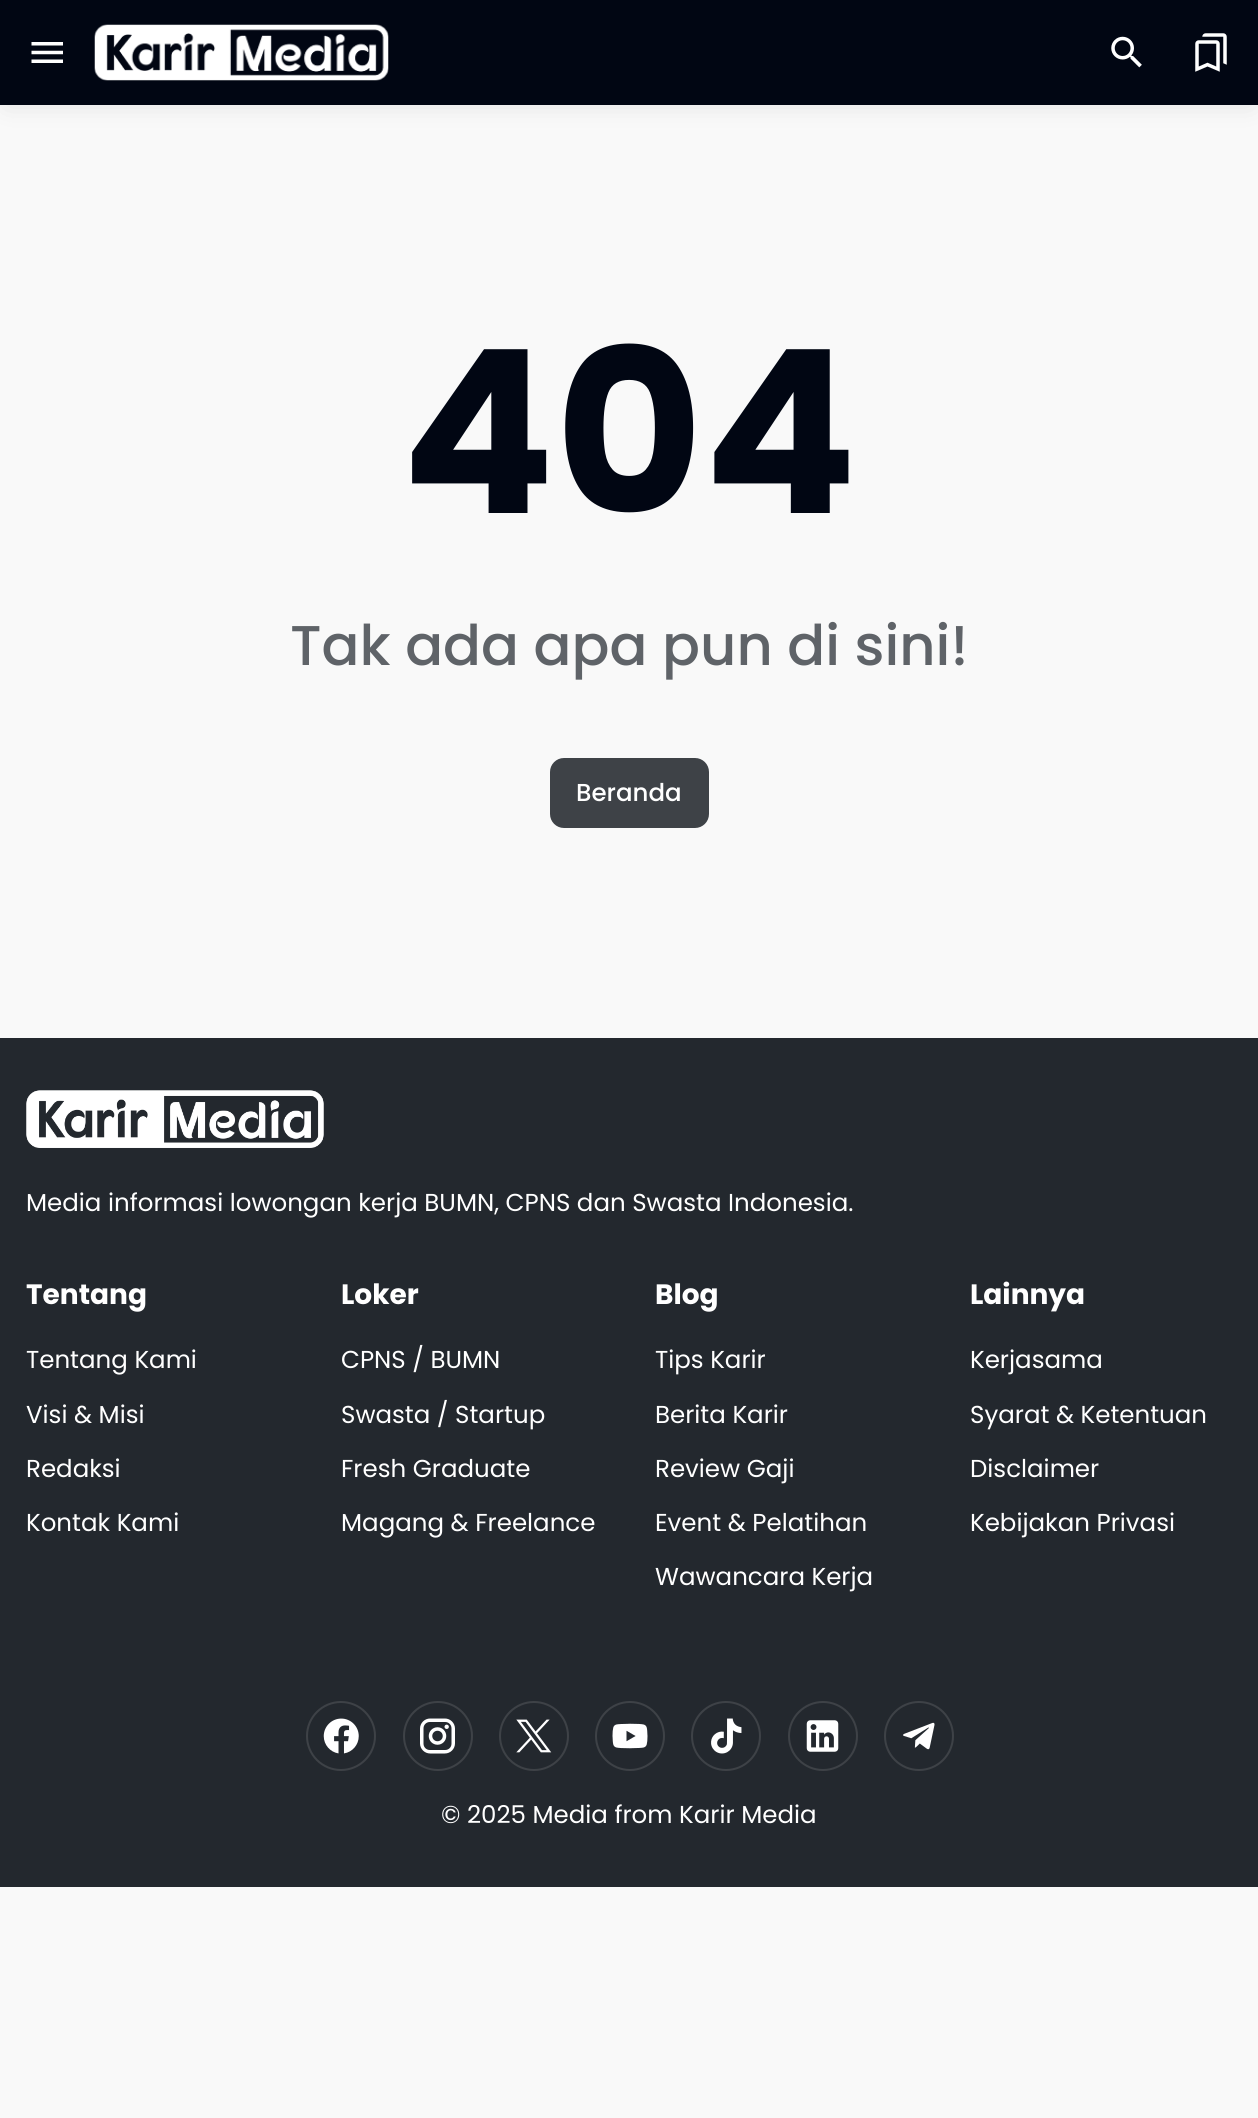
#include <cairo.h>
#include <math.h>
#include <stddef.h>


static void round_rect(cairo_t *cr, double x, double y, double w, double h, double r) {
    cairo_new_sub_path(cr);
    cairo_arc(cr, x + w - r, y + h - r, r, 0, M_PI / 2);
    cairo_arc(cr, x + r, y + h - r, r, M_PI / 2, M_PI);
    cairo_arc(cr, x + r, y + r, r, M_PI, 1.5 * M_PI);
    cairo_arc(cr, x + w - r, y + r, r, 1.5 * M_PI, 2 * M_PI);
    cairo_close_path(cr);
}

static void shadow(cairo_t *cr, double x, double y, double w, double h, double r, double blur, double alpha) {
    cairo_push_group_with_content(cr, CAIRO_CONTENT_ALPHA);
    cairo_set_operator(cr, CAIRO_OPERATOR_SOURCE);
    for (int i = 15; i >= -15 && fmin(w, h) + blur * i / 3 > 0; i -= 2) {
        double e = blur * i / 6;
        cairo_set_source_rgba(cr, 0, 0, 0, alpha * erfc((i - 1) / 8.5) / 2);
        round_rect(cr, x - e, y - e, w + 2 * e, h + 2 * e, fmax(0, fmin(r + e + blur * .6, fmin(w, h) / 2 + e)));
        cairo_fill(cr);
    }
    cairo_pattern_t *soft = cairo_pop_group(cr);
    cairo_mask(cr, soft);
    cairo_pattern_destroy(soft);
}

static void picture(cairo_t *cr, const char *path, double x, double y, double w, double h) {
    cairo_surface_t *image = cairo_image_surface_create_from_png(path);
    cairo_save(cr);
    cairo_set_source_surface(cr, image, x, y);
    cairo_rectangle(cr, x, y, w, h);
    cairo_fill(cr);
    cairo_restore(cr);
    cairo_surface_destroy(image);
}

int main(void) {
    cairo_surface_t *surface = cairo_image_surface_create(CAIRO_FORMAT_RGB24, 1258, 2118);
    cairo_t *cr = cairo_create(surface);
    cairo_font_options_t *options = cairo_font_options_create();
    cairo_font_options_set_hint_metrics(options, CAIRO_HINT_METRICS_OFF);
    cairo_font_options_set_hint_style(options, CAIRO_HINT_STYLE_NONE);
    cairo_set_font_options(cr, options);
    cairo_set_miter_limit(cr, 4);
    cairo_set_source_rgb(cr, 0.976, 0.976, 0.976);
    cairo_paint(cr);
    cairo_set_source_rgb(cr, 0.067, 0.067, 0.067);
    shadow(cr, 7, 11, 1244, 91, 0, 14, 0.12);
    cairo_set_source_rgb(cr, 0.004, 0.024, 0.075);
    cairo_rectangle(cr, 0, 0, 1258, 105);
    cairo_fill(cr);
    picture(cr, "img1.png", 31, 42, 32, 21);
    picture(cr, "img2.png", 94, 24, 295, 57);
    picture(cr, "img3.png", 1111, 36, 31, 32);
    picture(cr, "img4.png", 1195, 33, 32, 39);
    cairo_select_font_face(cr, "Poppins", CAIRO_FONT_SLANT_NORMAL, CAIRO_FONT_WEIGHT_BOLD);
    cairo_set_font_size(cr, 227.5);
    cairo_move_to(cr, 401, 513);
    cairo_show_text(cr, "404");
    cairo_select_font_face(cr, "Poppins Medium", CAIRO_FONT_SLANT_NORMAL, CAIRO_FONT_WEIGHT_NORMAL);
    cairo_set_font_size(cr, 56);
    cairo_set_source_rgb(cr, 0.373, 0.388, 0.408);
    cairo_move_to(cr, 290, 665);
    cairo_show_text(cr, "Tak ada apa pun di sini!");
    cairo_set_source_rgb(cr, 0.243, 0.259, 0.278);
    round_rect(cr, 550, 758, 159, 70, 14);
    cairo_fill(cr);
    cairo_set_font_size(cr, 24.5);
    cairo_set_source_rgb(cr, 1, 1, 1);
    cairo_move_to(cr, 576, 801);
    cairo_show_text(cr, "Beranda");
    cairo_set_source_rgb(cr, 0.137, 0.157, 0.18);
    cairo_rectangle(cr, 0, 1038, 1258, 849);
    cairo_fill(cr);
    picture(cr, "img5.png", 26, 1090, 298, 58);
    cairo_select_font_face(cr, "Poppins", CAIRO_FONT_SLANT_NORMAL, CAIRO_FONT_WEIGHT_NORMAL);
    cairo_set_source_rgb(cr, 1, 1, 1);
    cairo_move_to(cr, 26, 1211);
    cairo_show_text(cr, "Media informasi lowongan kerja BUMN, CPNS dan Swasta Indonesia.");
    cairo_select_font_face(cr, "Poppins", CAIRO_FONT_SLANT_NORMAL, CAIRO_FONT_WEIGHT_BOLD);
    cairo_set_font_size(cr, 28);
    cairo_move_to(cr, 26, 1304);
    cairo_show_text(cr, "Tentang");
    cairo_select_font_face(cr, "Poppins", CAIRO_FONT_SLANT_NORMAL, CAIRO_FONT_WEIGHT_NORMAL);
    cairo_set_font_size(cr, 24.5);
    cairo_move_to(cr, 26, 1368);
    cairo_show_text(cr, "Tentang Kami");
    cairo_move_to(cr, 26, 1423);
    cairo_show_text(cr, "Visi & Misi");
    cairo_move_to(cr, 26, 1477);
    cairo_show_text(cr, "Redaksi");
    cairo_move_to(cr, 26, 1531);
    cairo_show_text(cr, "Kontak Kami");
    cairo_select_font_face(cr, "Poppins", CAIRO_FONT_SLANT_NORMAL, CAIRO_FONT_WEIGHT_BOLD);
    cairo_set_font_size(cr, 28);
    cairo_move_to(cr, 341, 1304);
    cairo_show_text(cr, "Loker");
    cairo_select_font_face(cr, "Poppins", CAIRO_FONT_SLANT_NORMAL, CAIRO_FONT_WEIGHT_NORMAL);
    cairo_set_font_size(cr, 24.5);
    cairo_move_to(cr, 341, 1368);
    cairo_show_text(cr, "CPNS / BUMN");
    cairo_move_to(cr, 341, 1423);
    cairo_show_text(cr, "Swasta / Startup");
    cairo_move_to(cr, 341, 1477);
    cairo_show_text(cr, "Fresh Graduate");
    cairo_move_to(cr, 341, 1531);
    cairo_show_text(cr, "Magang & Freelance");
    cairo_select_font_face(cr, "Poppins", CAIRO_FONT_SLANT_NORMAL, CAIRO_FONT_WEIGHT_BOLD);
    cairo_set_font_size(cr, 28);
    cairo_move_to(cr, 655, 1304);
    cairo_show_text(cr, "Blog");
    cairo_select_font_face(cr, "Poppins", CAIRO_FONT_SLANT_NORMAL, CAIRO_FONT_WEIGHT_NORMAL);
    cairo_set_font_size(cr, 24.5);
    cairo_move_to(cr, 655, 1368);
    cairo_show_text(cr, "Tips Karir");
    cairo_move_to(cr, 655, 1423);
    cairo_show_text(cr, "Berita Karir");
    cairo_move_to(cr, 655, 1477);
    cairo_show_text(cr, "Review Gaji");
    cairo_move_to(cr, 655, 1531);
    cairo_show_text(cr, "Event & Pelatihan");
    cairo_move_to(cr, 655, 1585);
    cairo_show_text(cr, "Wawancara Kerja");
    cairo_select_font_face(cr, "Poppins", CAIRO_FONT_SLANT_NORMAL, CAIRO_FONT_WEIGHT_BOLD);
    cairo_set_font_size(cr, 28);
    cairo_move_to(cr, 970, 1304);
    cairo_show_text(cr, "Lainnya");
    cairo_select_font_face(cr, "Poppins", CAIRO_FONT_SLANT_NORMAL, CAIRO_FONT_WEIGHT_NORMAL);
    cairo_set_font_size(cr, 24.5);
    cairo_move_to(cr, 970, 1368);
    cairo_show_text(cr, "Kerjasama");
    cairo_move_to(cr, 970, 1423);
    cairo_show_text(cr, "Syarat & Ketentuan");
    cairo_move_to(cr, 970, 1477);
    cairo_show_text(cr, "Disclaimer");
    cairo_move_to(cr, 970, 1531);
    cairo_show_text(cr, "Kebijakan Privasi");
    cairo_new_path(cr);
    cairo_arc(cr, 341, 1736, 34, 0, 2 * M_PI);
    cairo_set_source_rgb(cr, 0.243, 0.259, 0.278);
    cairo_stroke(cr);
    picture(cr, "img6.png", 323, 1718, 36, 36);
    cairo_arc(cr, 438, 1736, 34, 0, 2 * M_PI);
    cairo_stroke(cr);
    picture(cr, "img7.png", 420, 1718, 35, 36);
    cairo_arc(cr, 534, 1736, 34, 0, 2 * M_PI);
    cairo_stroke(cr);
    picture(cr, "img8.png", 516, 1719, 36, 34);
    cairo_arc(cr, 630, 1736, 34, 0, 2 * M_PI);
    cairo_stroke(cr);
    picture(cr, "img9.png", 612, 1723, 36, 26);
    cairo_arc(cr, 726, 1736, 34, 0, 2 * M_PI);
    cairo_stroke(cr);
    picture(cr, "img10.png", 711, 1718, 31, 36);
    cairo_arc(cr, 823, 1736, 34, 0, 2 * M_PI);
    cairo_stroke(cr);
    picture(cr, "img11.png", 806, 1720, 33, 32);
    cairo_arc(cr, 919, 1736, 34, 0, 2 * M_PI);
    cairo_stroke(cr);
    picture(cr, "img12.png", 903, 1722, 32, 28);
    cairo_set_source_rgb(cr, 1, 1, 1);
    cairo_move_to(cr, 441, 1823);
    cairo_show_text(cr, "© 2025 Media from Karir Media");
    cairo_surface_write_to_png(surface, "page.png");
    cairo_font_options_destroy(options);
    cairo_destroy(cr);
    cairo_surface_destroy(surface);
    return 0;
}
